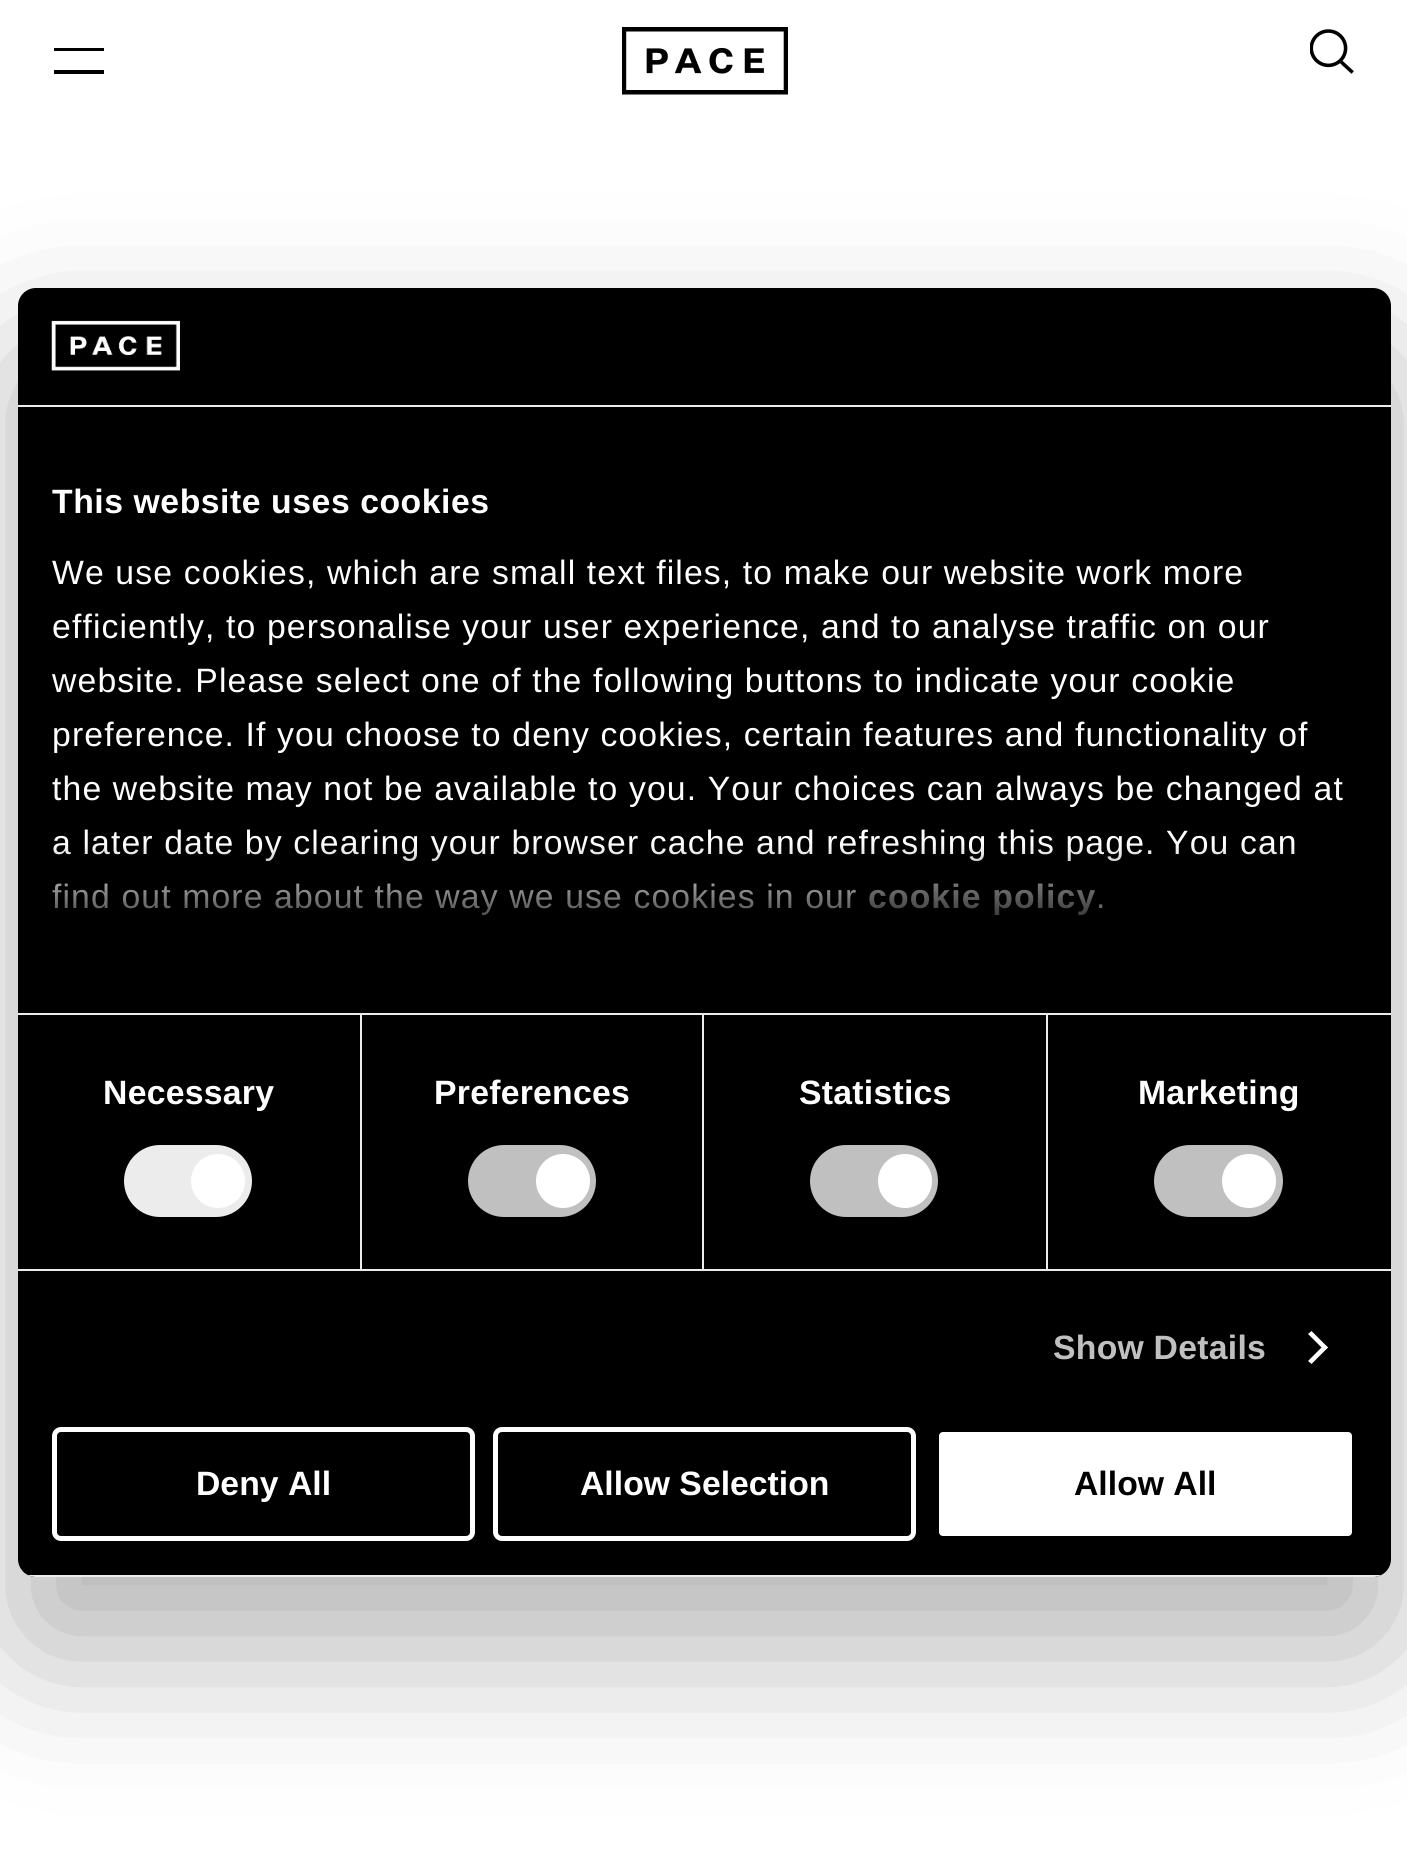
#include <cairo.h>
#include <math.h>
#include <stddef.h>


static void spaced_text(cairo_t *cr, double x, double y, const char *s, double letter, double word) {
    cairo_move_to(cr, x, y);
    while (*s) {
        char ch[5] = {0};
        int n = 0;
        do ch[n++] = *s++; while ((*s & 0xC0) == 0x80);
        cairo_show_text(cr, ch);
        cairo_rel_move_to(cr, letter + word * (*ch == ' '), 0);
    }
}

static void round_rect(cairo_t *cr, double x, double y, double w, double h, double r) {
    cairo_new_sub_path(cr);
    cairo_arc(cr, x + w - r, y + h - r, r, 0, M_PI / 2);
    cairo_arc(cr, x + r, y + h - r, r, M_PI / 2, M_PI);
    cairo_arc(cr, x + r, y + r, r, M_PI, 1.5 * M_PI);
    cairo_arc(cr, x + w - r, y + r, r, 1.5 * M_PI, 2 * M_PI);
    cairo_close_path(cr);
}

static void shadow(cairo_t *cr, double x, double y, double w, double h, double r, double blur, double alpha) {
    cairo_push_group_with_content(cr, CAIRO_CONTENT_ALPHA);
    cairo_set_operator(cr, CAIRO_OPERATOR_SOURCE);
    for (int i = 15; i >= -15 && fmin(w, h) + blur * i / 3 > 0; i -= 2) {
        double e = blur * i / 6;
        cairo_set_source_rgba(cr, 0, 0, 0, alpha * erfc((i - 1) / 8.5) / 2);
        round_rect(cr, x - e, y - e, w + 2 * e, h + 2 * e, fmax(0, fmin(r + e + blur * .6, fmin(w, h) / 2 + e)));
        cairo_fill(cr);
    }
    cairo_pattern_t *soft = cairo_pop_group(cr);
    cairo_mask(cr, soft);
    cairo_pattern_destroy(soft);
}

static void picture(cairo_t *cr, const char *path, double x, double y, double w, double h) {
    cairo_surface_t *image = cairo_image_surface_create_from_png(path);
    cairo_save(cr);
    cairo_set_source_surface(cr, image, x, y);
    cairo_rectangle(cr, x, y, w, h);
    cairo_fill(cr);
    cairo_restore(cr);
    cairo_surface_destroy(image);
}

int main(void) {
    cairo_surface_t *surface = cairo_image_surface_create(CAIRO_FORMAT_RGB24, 1407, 1862);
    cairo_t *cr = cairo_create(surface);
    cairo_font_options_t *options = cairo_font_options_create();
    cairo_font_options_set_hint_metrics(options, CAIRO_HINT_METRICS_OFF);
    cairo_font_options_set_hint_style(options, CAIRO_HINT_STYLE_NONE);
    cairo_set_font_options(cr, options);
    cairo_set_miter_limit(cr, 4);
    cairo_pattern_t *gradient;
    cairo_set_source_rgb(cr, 1, 1, 1);
    cairo_paint(cr);
    cairo_set_source_rgb(cr, 0, 0, 0);
    cairo_set_fill_rule(cr, CAIRO_FILL_RULE_EVEN_ODD);
    cairo_new_path(cr);
    cairo_move_to(cr, 54, 51);
    cairo_line_to(cr, 104, 51);
    cairo_line_to(cr, 104, 48);
    cairo_line_to(cr, 54, 48);
    cairo_close_path(cr);
    cairo_move_to(cr, 54, 74);
    cairo_line_to(cr, 104, 74);
    cairo_line_to(cr, 104, 70);
    cairo_line_to(cr, 54, 70);
    cairo_close_path(cr);
    cairo_fill(cr);
    picture(cr, "img1.png", 622, 27, 166, 68);
    picture(cr, "img2.png", 1310, 29, 44, 45);
    cairo_set_source_rgb(cr, 0, 0, 0);
    shadow(cr, 18, 360, 1373, 1289, 18, 76.5, 0.3);
    cairo_set_source_rgb(cr, 0, 0, 0);
    round_rect(cr, 18, 288, 1373, 1289, 18);
    cairo_fill(cr);
    cairo_set_source_rgb(cr, 0.922, 0.922, 0.922);
    cairo_rectangle(cr, 18, 405, 1373, 2);
    cairo_fill(cr);
    picture(cr, "img3.png", 51, 320, 129, 51);
    cairo_rectangle(cr, 18, 1013, 1373, 2);
    cairo_fill(cr);
    cairo_select_font_face(cr, "Liberation Sans", CAIRO_FONT_SLANT_NORMAL, CAIRO_FONT_WEIGHT_BOLD);
    cairo_set_font_size(cr, 33.75);
    cairo_set_source_rgb(cr, 1, 1, 1);
    spaced_text(cr, 52, 513, "This website uses cookies", 0.55, 0);
    cairo_select_font_face(cr, "Liberation Sans", CAIRO_FONT_SLANT_NORMAL, CAIRO_FONT_WEIGHT_NORMAL);
    spaced_text(cr, 52, 584, "We use cookies, which are small text files, to make our website work more", 1.12, 0);
    spaced_text(cr, 52, 638, "efficiently, to personalise your user experience, and to analyse traffic on our", 1.12, 0);
    spaced_text(cr, 52, 692, "website. Please select one of the following buttons to indicate your cookie", 1.12, 0);
    spaced_text(cr, 52, 746, "preference. If you choose to deny cookies, certain features and functionality of", 1.12, 0);
    spaced_text(cr, 52, 800, "the website may not be available to you. Your choices can always be changed at", 1.12, 0);
    spaced_text(cr, 52, 854, "a later date by clearing your browser cache and refreshing this page. You can", 1.12, 0);
    spaced_text(cr, 52, 908, "find out more about the way we use cookies in our", 1.12, 0);
    cairo_select_font_face(cr, "Liberation Sans", CAIRO_FONT_SLANT_NORMAL, CAIRO_FONT_WEIGHT_BOLD);
    cairo_set_source_rgb(cr, 0.753, 0.753, 0.753);
    spaced_text(cr, 868, 908, "cookie policy", 1.12, 0);
    cairo_select_font_face(cr, "Liberation Sans", CAIRO_FONT_SLANT_NORMAL, CAIRO_FONT_WEIGHT_NORMAL);
    cairo_set_source_rgb(cr, 1, 1, 1);
    spaced_text(cr, 1096, 908, ".", 1.12, 0);
    gradient = cairo_pattern_create_linear(690, 1012, 690, 843);
    cairo_pattern_add_color_stop_rgba(gradient, 0, 0, 0, 0, 1);
    cairo_pattern_add_color_stop_rgba(gradient, 0.5, 0, 0, 0, 0.8);
    cairo_pattern_add_color_stop_rgba(gradient, 1, 0, 0, 0, 0);
    cairo_set_source(cr, gradient);
    cairo_pattern_destroy(gradient);
    cairo_rectangle(cr, 52, 845, 1243, 70);
    cairo_fill(cr);
    cairo_set_source_rgb(cr, 0.922, 0.922, 0.922);
    cairo_rectangle(cr, 18, 1269, 1373, 2);
    cairo_fill(cr);
    cairo_rectangle(cr, 360, 1015, 2, 254);
    cairo_fill(cr);
    cairo_select_font_face(cr, "Liberation Sans", CAIRO_FONT_SLANT_NORMAL, CAIRO_FONT_WEIGHT_BOLD);
    cairo_set_source_rgb(cr, 1, 1, 1);
    spaced_text(cr, 103, 1104, "Necessary", 0.25, 0);
    cairo_set_source_rgb(cr, 0.922, 0.922, 0.922);
    round_rect(cr, 124, 1145, 128, 72, 36);
    cairo_fill(cr);
    cairo_set_source_rgb(cr, 1, 1, 1);
    cairo_arc(cr, 218, 1181, 27, 0, 2 * M_PI);
    cairo_fill(cr);
    cairo_set_source_rgb(cr, 0.922, 0.922, 0.922);
    cairo_rectangle(cr, 702, 1015, 2, 254);
    cairo_fill(cr);
    cairo_set_source_rgb(cr, 1, 1, 1);
    spaced_text(cr, 434, 1104, "Preferences", 0.25, 0);
    cairo_set_source_rgb(cr, 0.753, 0.753, 0.753);
    round_rect(cr, 468, 1145, 128, 72, 36);
    cairo_fill(cr);
    cairo_set_source_rgb(cr, 1, 1, 1);
    cairo_arc(cr, 563, 1181, 27, 0, 2 * M_PI);
    cairo_fill(cr);
    cairo_set_source_rgb(cr, 0.922, 0.922, 0.922);
    cairo_rectangle(cr, 1046, 1015, 2, 254);
    cairo_fill(cr);
    cairo_set_source_rgb(cr, 1, 1, 1);
    spaced_text(cr, 799, 1104, "Statistics", 0.25, 0);
    cairo_set_source_rgb(cr, 0.753, 0.753, 0.753);
    round_rect(cr, 810, 1145, 128, 72, 36);
    cairo_fill(cr);
    cairo_set_source_rgb(cr, 1, 1, 1);
    cairo_arc(cr, 905, 1181, 27, 0, 2 * M_PI);
    cairo_fill(cr);
    spaced_text(cr, 1138, 1104, "Marketing", 0.25, 0);
    cairo_set_source_rgb(cr, 0.753, 0.753, 0.753);
    round_rect(cr, 1154, 1145, 129, 72, 36);
    cairo_fill(cr);
    cairo_set_source_rgb(cr, 1, 1, 1);
    cairo_arc(cr, 1249, 1181, 27, 0, 2 * M_PI);
    cairo_fill(cr);
    cairo_set_source_rgb(cr, 0.753, 0.753, 0.753);
    spaced_text(cr, 1053, 1359, "Show Details", 0.25, 0);
    cairo_set_source_rgb(cr, 1, 1, 1);
    cairo_set_fill_rule(cr, CAIRO_FILL_RULE_WINDING);
    cairo_new_path(cr);
    cairo_move_to(cr, 1311.5, 1331);
    cairo_line_to(cr, 1328, 1347.5);
    cairo_line_to(cr, 1324.5, 1350.5);
    cairo_line_to(cr, 1308, 1334);
    cairo_close_path(cr);
    cairo_fill(cr);
    cairo_new_path(cr);
    cairo_move_to(cr, 1324.5, 1344.5);
    cairo_line_to(cr, 1328, 1347.5);
    cairo_line_to(cr, 1311.5, 1364);
    cairo_line_to(cr, 1308, 1361);
    cairo_close_path(cr);
    cairo_fill(cr);
    cairo_save(cr);
    round_rect(cr, 18, 288, 1373, 1289, 18);
    cairo_clip(cr);
    cairo_set_source_rgb(cr, 0.922, 0.922, 0.922);
    cairo_rectangle(cr, 28, 1575, 1353, 2);
    cairo_fill(cr);
    cairo_restore(cr);
    round_rect(cr, 54.5, 1429.5, 418, 109, 6.5);
    cairo_set_line_width(cr, 5);
    cairo_stroke(cr);
    cairo_move_to(cr, 196, 1495);
    cairo_show_text(cr, "Deny All");
    round_rect(cr, 495.5, 1429.5, 418, 109, 6.5);
    cairo_stroke(cr);
    cairo_move_to(cr, 580, 1495);
    cairo_show_text(cr, "Allow Selection");
    round_rect(cr, 936.5, 1429.5, 418, 109, 6.5);
    cairo_fill_preserve(cr);
    cairo_set_source_rgb(cr, 0, 0, 0);
    cairo_stroke(cr);
    cairo_move_to(cr, 1074, 1495);
    cairo_show_text(cr, "Allow All");
    cairo_surface_write_to_png(surface, "page.png");
    cairo_font_options_destroy(options);
    cairo_destroy(cr);
    cairo_surface_destroy(surface);
    return 0;
}
